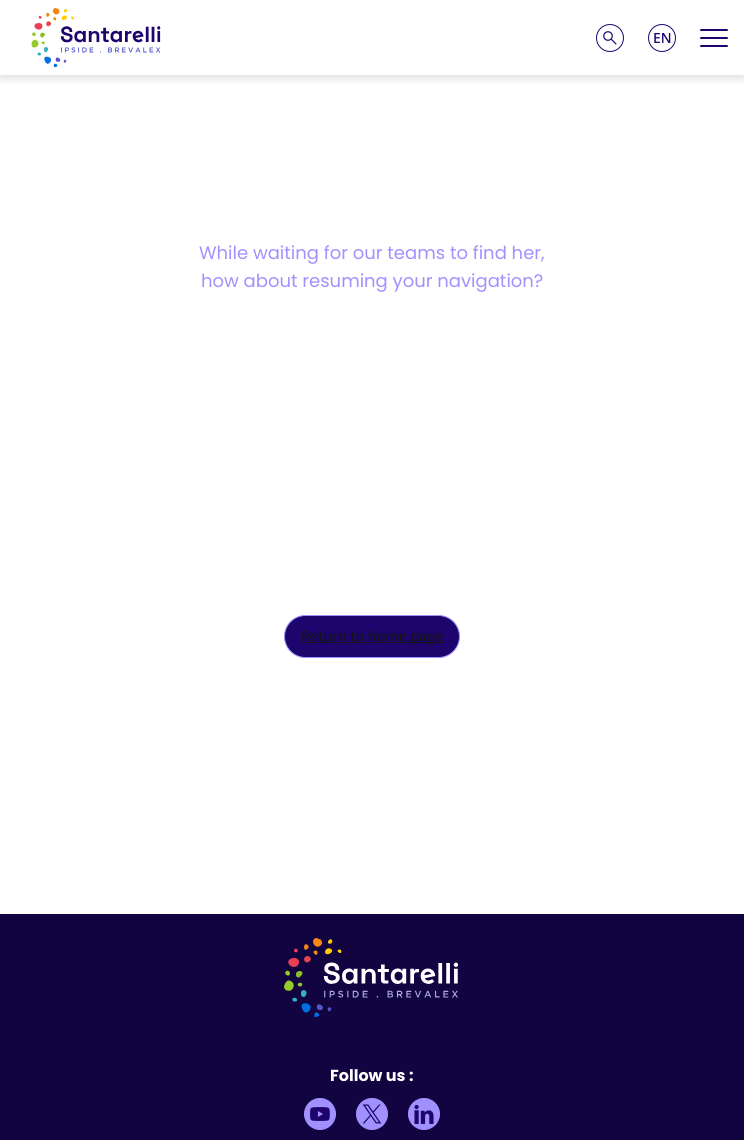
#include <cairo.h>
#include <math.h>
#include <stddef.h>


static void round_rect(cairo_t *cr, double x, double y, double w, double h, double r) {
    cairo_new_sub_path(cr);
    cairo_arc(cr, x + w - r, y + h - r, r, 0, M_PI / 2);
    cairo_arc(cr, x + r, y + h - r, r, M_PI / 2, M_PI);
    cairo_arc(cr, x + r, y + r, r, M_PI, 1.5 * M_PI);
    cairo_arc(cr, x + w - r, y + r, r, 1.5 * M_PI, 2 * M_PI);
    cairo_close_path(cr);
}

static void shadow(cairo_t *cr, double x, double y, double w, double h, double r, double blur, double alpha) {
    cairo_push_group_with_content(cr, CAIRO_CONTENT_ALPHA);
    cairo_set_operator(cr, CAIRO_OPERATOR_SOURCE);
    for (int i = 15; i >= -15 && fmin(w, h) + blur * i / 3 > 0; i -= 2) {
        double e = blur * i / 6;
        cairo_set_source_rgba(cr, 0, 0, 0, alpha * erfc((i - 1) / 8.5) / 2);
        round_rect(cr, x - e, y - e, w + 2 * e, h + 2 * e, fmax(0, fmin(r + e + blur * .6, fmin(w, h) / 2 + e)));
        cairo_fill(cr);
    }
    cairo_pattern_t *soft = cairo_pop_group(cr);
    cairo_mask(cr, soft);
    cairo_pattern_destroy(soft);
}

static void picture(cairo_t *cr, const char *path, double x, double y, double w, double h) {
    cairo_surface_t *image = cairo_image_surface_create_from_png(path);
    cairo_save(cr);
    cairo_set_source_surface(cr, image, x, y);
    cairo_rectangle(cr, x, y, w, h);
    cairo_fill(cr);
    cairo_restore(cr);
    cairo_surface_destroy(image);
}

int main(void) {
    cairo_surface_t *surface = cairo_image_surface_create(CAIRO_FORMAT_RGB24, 744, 1140);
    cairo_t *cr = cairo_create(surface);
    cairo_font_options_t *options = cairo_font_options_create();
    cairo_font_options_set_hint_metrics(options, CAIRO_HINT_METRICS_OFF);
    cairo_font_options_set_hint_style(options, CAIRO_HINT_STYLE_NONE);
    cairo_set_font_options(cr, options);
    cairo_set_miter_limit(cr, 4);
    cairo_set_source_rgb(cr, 1, 1, 1);
    cairo_paint(cr);
    cairo_save(cr);
    cairo_rectangle(cr, 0, 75, 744, 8);
    cairo_clip(cr);
    cairo_set_source_rgb(cr, 0, 0, 0);
    shadow(cr, 0, 4, 744, 75, 0, 4, 0.12);
    cairo_restore(cr);
    picture(cr, "img1.png", 31, 8, 130, 59);
    cairo_arc(cr, 610, 38, 13.5, 0, 2 * M_PI);
    cairo_set_source_rgb(cr, 0.118, 0.02, 0.431);
    cairo_set_line_width(cr, 1);
    cairo_stroke(cr);
    picture(cr, "img2.png", 603, 31, 14, 14);
    cairo_arc(cr, 662, 38, 13.5, 0, 2 * M_PI);
    cairo_stroke(cr);
    cairo_select_font_face(cr, "Noto Sans Medium", CAIRO_FONT_SLANT_NORMAL, CAIRO_FONT_WEIGHT_NORMAL);
    cairo_set_font_size(cr, 14);
    cairo_move_to(cr, 653, 43);
    cairo_show_text(cr, "EN");
    round_rect(cr, 700, 29, 28, 2, 1);
    cairo_fill(cr);
    round_rect(cr, 700, 37, 28, 2, 1);
    cairo_fill(cr);
    round_rect(cr, 700, 45, 28, 2, 1);
    cairo_fill(cr);
    cairo_select_font_face(cr, "Poppins", CAIRO_FONT_SLANT_NORMAL, CAIRO_FONT_WEIGHT_NORMAL);
    cairo_set_font_size(cr, 18);
    cairo_set_source_rgb(cr, 0.631, 0.569, 1);
    cairo_move_to(cr, 199, 259);
    cairo_show_text(cr, "While waiting for our teams to find her,");
    cairo_move_to(cr, 201, 287);
    cairo_show_text(cr, "how about resuming your navigation?");
    cairo_set_source_rgb(cr, 0.118, 0.02, 0.431);
    round_rect(cr, 284.5, 615.5, 175, 42, 21);
    cairo_fill_preserve(cr);
    cairo_set_source_rgb(cr, 0.631, 0.569, 1);
    cairo_stroke(cr);
    cairo_set_source_rgb(cr, 0.078, 0.082, 0.082);
    cairo_rectangle(cr, 301, 642, 142, 1);
    cairo_fill(cr);
    cairo_select_font_face(cr, "Noto Sans Medium", CAIRO_FONT_SLANT_NORMAL, CAIRO_FONT_WEIGHT_NORMAL);
    cairo_set_font_size(cr, 14);
    cairo_move_to(cr, 301, 641);
    cairo_show_text(cr, "Return to home page");
    cairo_set_source_rgb(cr, 0.071, 0.016, 0.251);
    cairo_rectangle(cr, 0, 914, 744, 226);
    cairo_fill(cr);
    picture(cr, "img3.png", 284, 938, 174, 79);
    cairo_select_font_face(cr, "Poppins", CAIRO_FONT_SLANT_NORMAL, CAIRO_FONT_WEIGHT_BOLD);
    cairo_set_font_size(cr, 16);
    cairo_set_source_rgb(cr, 1, 1, 1);
    cairo_move_to(cr, 330, 1081);
    cairo_show_text(cr, "Follow us :");
    cairo_set_source_rgb(cr, 0.631, 0.569, 1);
    cairo_new_path(cr);
    cairo_arc(cr, 320, 1114, 15.5, 0, 2 * M_PI);
    cairo_fill_preserve(cr);
    cairo_stroke(cr);
    picture(cr, "img4.png", 310, 1107, 20, 14);
    cairo_arc(cr, 372, 1114, 15.5, 0, 2 * M_PI);
    cairo_fill_preserve(cr);
    cairo_stroke(cr);
    picture(cr, "img5.png", 362, 1104, 20, 20);
    cairo_arc(cr, 424, 1114, 15.5, 0, 2 * M_PI);
    cairo_fill_preserve(cr);
    cairo_stroke(cr);
    picture(cr, "img6.png", 414, 1104, 20, 20);
    cairo_surface_write_to_png(surface, "page.png");
    cairo_font_options_destroy(options);
    cairo_destroy(cr);
    cairo_surface_destroy(surface);
    return 0;
}
